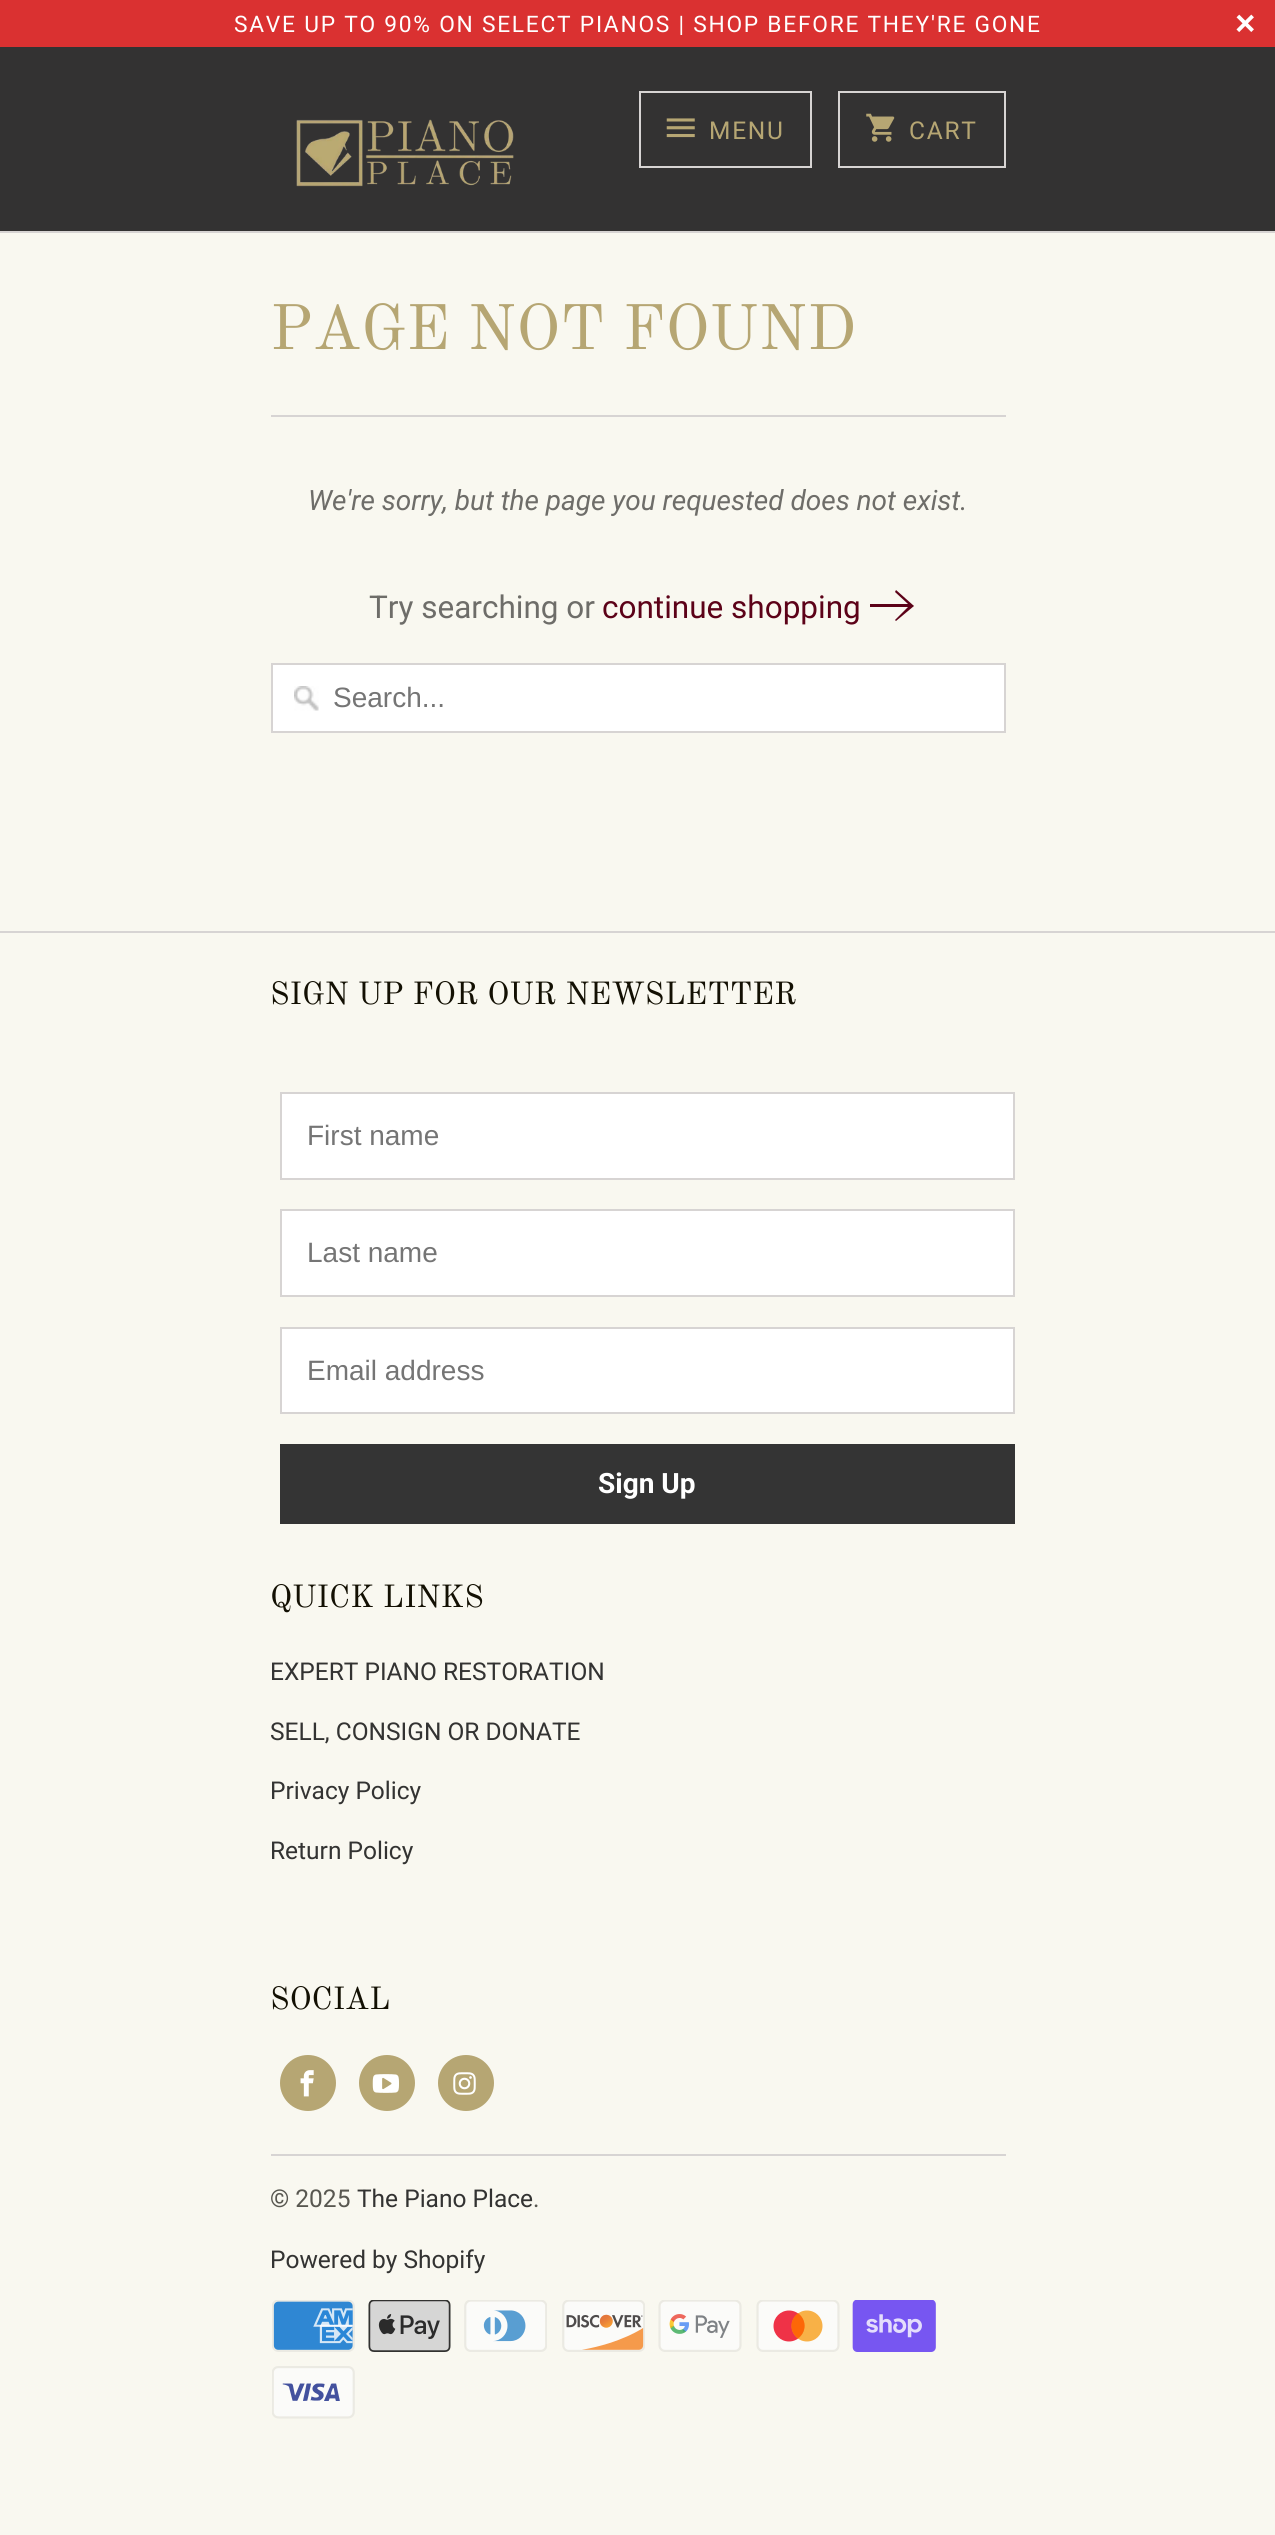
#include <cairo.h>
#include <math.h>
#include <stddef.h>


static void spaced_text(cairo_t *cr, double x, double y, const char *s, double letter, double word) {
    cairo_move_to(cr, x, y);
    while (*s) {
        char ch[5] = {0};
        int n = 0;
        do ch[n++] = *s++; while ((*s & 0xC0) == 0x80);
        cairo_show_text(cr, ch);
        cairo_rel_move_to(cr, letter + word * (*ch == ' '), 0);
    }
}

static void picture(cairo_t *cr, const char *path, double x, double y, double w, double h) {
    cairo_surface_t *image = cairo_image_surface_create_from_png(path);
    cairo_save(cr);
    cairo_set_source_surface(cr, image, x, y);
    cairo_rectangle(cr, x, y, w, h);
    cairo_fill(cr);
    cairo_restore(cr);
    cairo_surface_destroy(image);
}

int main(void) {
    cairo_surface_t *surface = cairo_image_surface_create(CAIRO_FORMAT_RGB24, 1275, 2535);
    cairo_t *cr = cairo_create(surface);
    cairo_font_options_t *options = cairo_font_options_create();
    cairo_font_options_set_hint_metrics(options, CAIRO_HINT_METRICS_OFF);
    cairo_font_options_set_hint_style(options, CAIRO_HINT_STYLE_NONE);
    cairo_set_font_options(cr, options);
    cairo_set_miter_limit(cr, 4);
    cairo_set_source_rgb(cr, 0.976, 0.969, 0.941);
    cairo_paint(cr);
    cairo_set_source_rgb(cr, 0.855, 0.192, 0.192);
    cairo_rectangle(cr, 0, 0, 1275, 47);
    cairo_fill(cr);
    cairo_select_font_face(cr, "Roboto", CAIRO_FONT_SLANT_NORMAL, CAIRO_FONT_WEIGHT_NORMAL);
    cairo_set_font_size(cr, 22.75);
    cairo_set_source_rgb(cr, 1, 1, 1);
    spaced_text(cr, 234, 32, "SAVE UP TO 90% ON SELECT PIANOS | SHOP BEFORE THEY'RE GONE", 1.75, 0);
    cairo_select_font_face(cr, "Liberation Sans", CAIRO_FONT_SLANT_NORMAL, CAIRO_FONT_WEIGHT_BOLD);
    cairo_set_font_size(cr, 35);
    cairo_move_to(cr, 1235, 35);
    cairo_show_text(cr, "×");
    cairo_set_source_rgb(cr, 0.2, 0.196, 0.196);
    cairo_rectangle(cr, 0, 47, 1275, 184);
    cairo_fill(cr);
    cairo_set_source_rgb(cr, 0.843, 0.831, 0.827);
    cairo_rectangle(cr, 0, 231, 1275, 2);
    cairo_fill(cr);
    picture(cr, "img1.png", 296, 119, 218, 68);
    cairo_rectangle(cr, 640, 92, 171, 75);
    cairo_stroke(cr);
    picture(cr, "img2.png", 666, 118, 29, 20);
    cairo_select_font_face(cr, "Roboto", CAIRO_FONT_SLANT_NORMAL, CAIRO_FONT_WEIGHT_NORMAL);
    cairo_set_font_size(cr, 24.5);
    cairo_set_source_rgb(cr, 0.714, 0.651, 0.451);
    spaced_text(cr, 709, 139, "MENU", 1.75, 0);
    cairo_rectangle(cr, 839, 92, 166, 75);
    cairo_set_source_rgb(cr, 0.843, 0.831, 0.827);
    cairo_stroke(cr);
    picture(cr, "img3.png", 866, 113, 29, 29);
    cairo_set_source_rgb(cr, 0.714, 0.651, 0.451);
    spaced_text(cr, 909, 139, "CART", 1.75, 0);
    cairo_set_source_rgb(cr, 0.843, 0.831, 0.827);
    cairo_rectangle(cr, 271, 415, 735, 2);
    cairo_fill(cr);
    cairo_select_font_face(cr, "Old Standard TT", CAIRO_FONT_SLANT_NORMAL, CAIRO_FONT_WEIGHT_NORMAL);
    cairo_set_font_size(cr, 63);
    cairo_set_source_rgb(cr, 0.714, 0.651, 0.451);
    cairo_move_to(cr, 270, 349);
    cairo_show_text(cr, "PAGE NOT FOUND");
    cairo_select_font_face(cr, "Roboto", CAIRO_FONT_SLANT_ITALIC, CAIRO_FONT_WEIGHT_NORMAL);
    cairo_set_font_size(cr, 28);
    cairo_set_source_rgb(cr, 0.431, 0.427, 0.412);
    cairo_move_to(cr, 308, 510);
    cairo_show_text(cr, "We're sorry, but the page you requested does not exist.");
    cairo_select_font_face(cr, "Roboto", CAIRO_FONT_SLANT_NORMAL, CAIRO_FONT_WEIGHT_NORMAL);
    cairo_set_font_size(cr, 31.5);
    cairo_move_to(cr, 369, 618);
    cairo_show_text(cr, "Try searching or");
    cairo_set_source_rgb(cr, 0.361, 0.008, 0.094);
    cairo_move_to(cr, 602, 618);
    cairo_show_text(cr, "continue shopping");
    cairo_new_path(cr);
    cairo_move_to(cr, 914, 606);
    cairo_line_to(cr, 896, 621);
    cairo_line_to(cr, 895, 620);
    cairo_line_to(cr, 908, 607);
    cairo_line_to(cr, 870, 607);
    cairo_line_to(cr, 870, 604);
    cairo_line_to(cr, 908, 604);
    cairo_line_to(cr, 895, 592);
    cairo_line_to(cr, 896, 590);
    cairo_close_path(cr);
    cairo_fill(cr);
    cairo_set_source_rgb(cr, 1, 1, 1);
    cairo_rectangle(cr, 273, 665, 731, 66);
    cairo_fill(cr);
    picture(cr, "img4.png", 294, 686, 25, 25);
    cairo_rectangle(cr, 272, 664, 733, 68);
    cairo_set_source_rgb(cr, 0.843, 0.831, 0.827);
    cairo_stroke(cr);
    cairo_select_font_face(cr, "Liberation Sans", CAIRO_FONT_SLANT_NORMAL, CAIRO_FONT_WEIGHT_NORMAL);
    cairo_set_font_size(cr, 28);
    cairo_set_source_rgb(cr, 0.459, 0.459, 0.459);
    cairo_move_to(cr, 333, 707);
    cairo_show_text(cr, "Search...");
    cairo_set_source_rgb(cr, 0.843, 0.831, 0.827);
    cairo_rectangle(cr, 0, 931, 1275, 2);
    cairo_fill(cr);
    cairo_select_font_face(cr, "Old Standard TT", CAIRO_FONT_SLANT_NORMAL, CAIRO_FONT_WEIGHT_NORMAL);
    cairo_set_font_size(cr, 31.5);
    cairo_set_source_rgb(cr, 0.078, 0.063, 0.012);
    cairo_move_to(cr, 270, 1004);
    cairo_show_text(cr, "SIGN UP FOR OUR NEWSLETTER");
    cairo_set_source_rgb(cr, 1, 1, 1);
    cairo_rectangle(cr, 281, 1093, 733, 86);
    cairo_fill_preserve(cr);
    cairo_set_source_rgb(cr, 0.843, 0.831, 0.827);
    cairo_stroke(cr);
    cairo_select_font_face(cr, "Liberation Sans", CAIRO_FONT_SLANT_NORMAL, CAIRO_FONT_WEIGHT_NORMAL);
    cairo_set_font_size(cr, 28);
    cairo_set_source_rgb(cr, 0.459, 0.459, 0.459);
    cairo_move_to(cr, 307, 1145);
    cairo_show_text(cr, "First name");
    cairo_set_source_rgb(cr, 1, 1, 1);
    cairo_rectangle(cr, 281, 1210, 733, 86);
    cairo_fill_preserve(cr);
    cairo_set_source_rgb(cr, 0.843, 0.831, 0.827);
    cairo_stroke(cr);
    cairo_set_source_rgb(cr, 0.459, 0.459, 0.459);
    cairo_move_to(cr, 307, 1262);
    cairo_show_text(cr, "Last name");
    cairo_set_source_rgb(cr, 1, 1, 1);
    cairo_rectangle(cr, 281, 1328, 733, 85);
    cairo_fill_preserve(cr);
    cairo_set_source_rgb(cr, 0.843, 0.831, 0.827);
    cairo_stroke(cr);
    cairo_set_source_rgb(cr, 0.459, 0.459, 0.459);
    cairo_move_to(cr, 307, 1380);
    cairo_show_text(cr, "Email address");
    cairo_set_source_rgb(cr, 0.204, 0.204, 0.204);
    cairo_rectangle(cr, 280, 1444, 735, 80);
    cairo_fill(cr);
    cairo_select_font_face(cr, "Roboto", CAIRO_FONT_SLANT_NORMAL, CAIRO_FONT_WEIGHT_BOLD);
    cairo_set_source_rgb(cr, 1, 1, 1);
    cairo_move_to(cr, 598, 1493);
    cairo_show_text(cr, "Sign Up");
    cairo_select_font_face(cr, "Old Standard TT", CAIRO_FONT_SLANT_NORMAL, CAIRO_FONT_WEIGHT_NORMAL);
    cairo_set_font_size(cr, 31.5);
    cairo_set_source_rgb(cr, 0.078, 0.063, 0.012);
    cairo_move_to(cr, 270, 1607);
    cairo_show_text(cr, "QUICK LINKS");
    cairo_select_font_face(cr, "Roboto", CAIRO_FONT_SLANT_NORMAL, CAIRO_FONT_WEIGHT_NORMAL);
    cairo_set_font_size(cr, 24.5);
    cairo_set_source_rgb(cr, 0.2, 0.2, 0.196);
    cairo_move_to(cr, 270, 1680);
    cairo_show_text(cr, "EXPERT PIANO RESTORATION");
    cairo_move_to(cr, 270, 1740);
    cairo_show_text(cr, "SELL, CONSIGN OR DONATE");
    cairo_move_to(cr, 270, 1799);
    cairo_show_text(cr, "Privacy Policy");
    cairo_move_to(cr, 270, 1859);
    cairo_show_text(cr, "Return Policy");
    cairo_select_font_face(cr, "Old Standard TT", CAIRO_FONT_SLANT_NORMAL, CAIRO_FONT_WEIGHT_NORMAL);
    cairo_set_font_size(cr, 31.5);
    cairo_set_source_rgb(cr, 0.078, 0.063, 0.012);
    cairo_move_to(cr, 270, 2009);
    cairo_show_text(cr, "SOCIAL");
    cairo_set_source_rgb(cr, 0.714, 0.651, 0.451);
    cairo_new_path(cr);
    cairo_arc(cr, 308, 2083, 28, 0, 2 * M_PI);
    cairo_fill(cr);
    picture(cr, "img5.png", 300, 2070, 14, 27);
    cairo_arc(cr, 387, 2083, 28, 0, 2 * M_PI);
    cairo_fill(cr);
    picture(cr, "img6.png", 372, 2074, 27, 19);
    cairo_arc(cr, 466, 2083, 28, 0, 2 * M_PI);
    cairo_fill(cr);
    picture(cr, "img7.png", 453, 2072, 23, 23);
    cairo_set_source_rgb(cr, 0.843, 0.831, 0.827);
    cairo_rectangle(cr, 271, 2154, 735, 2);
    cairo_fill(cr);
    cairo_select_font_face(cr, "Roboto", CAIRO_FONT_SLANT_NORMAL, CAIRO_FONT_WEIGHT_NORMAL);
    cairo_set_font_size(cr, 24.5);
    cairo_set_source_rgb(cr, 0.345, 0.341, 0.314);
    cairo_move_to(cr, 270, 2207);
    cairo_show_text(cr, "© 2025");
    cairo_set_source_rgb(cr, 0.2, 0.2, 0.196);
    cairo_move_to(cr, 357, 2207);
    cairo_show_text(cr, "The Piano Place");
    cairo_set_source_rgb(cr, 0.345, 0.341, 0.314);
    cairo_move_to(cr, 533, 2207);
    cairo_show_text(cr, ".");
    cairo_set_source_rgb(cr, 0.2, 0.2, 0.196);
    cairo_move_to(cr, 270, 2268);
    cairo_show_text(cr, "Powered by Shopify");
    picture(cr, "img8.png", 272, 2300, 83, 52);
    picture(cr, "img9.png", 368, 2300, 83, 52);
    picture(cr, "img10.png", 464, 2300, 83, 52);
    picture(cr, "img11.png", 562, 2300, 83, 52);
    picture(cr, "img12.png", 658, 2300, 84, 52);
    picture(cr, "img13.png", 756, 2300, 84, 52);
    picture(cr, "img14.png", 852, 2300, 84, 52);
    picture(cr, "img15.png", 272, 2366, 83, 53);
    cairo_surface_write_to_png(surface, "page.png");
    cairo_font_options_destroy(options);
    cairo_destroy(cr);
    cairo_surface_destroy(surface);
    return 0;
}
